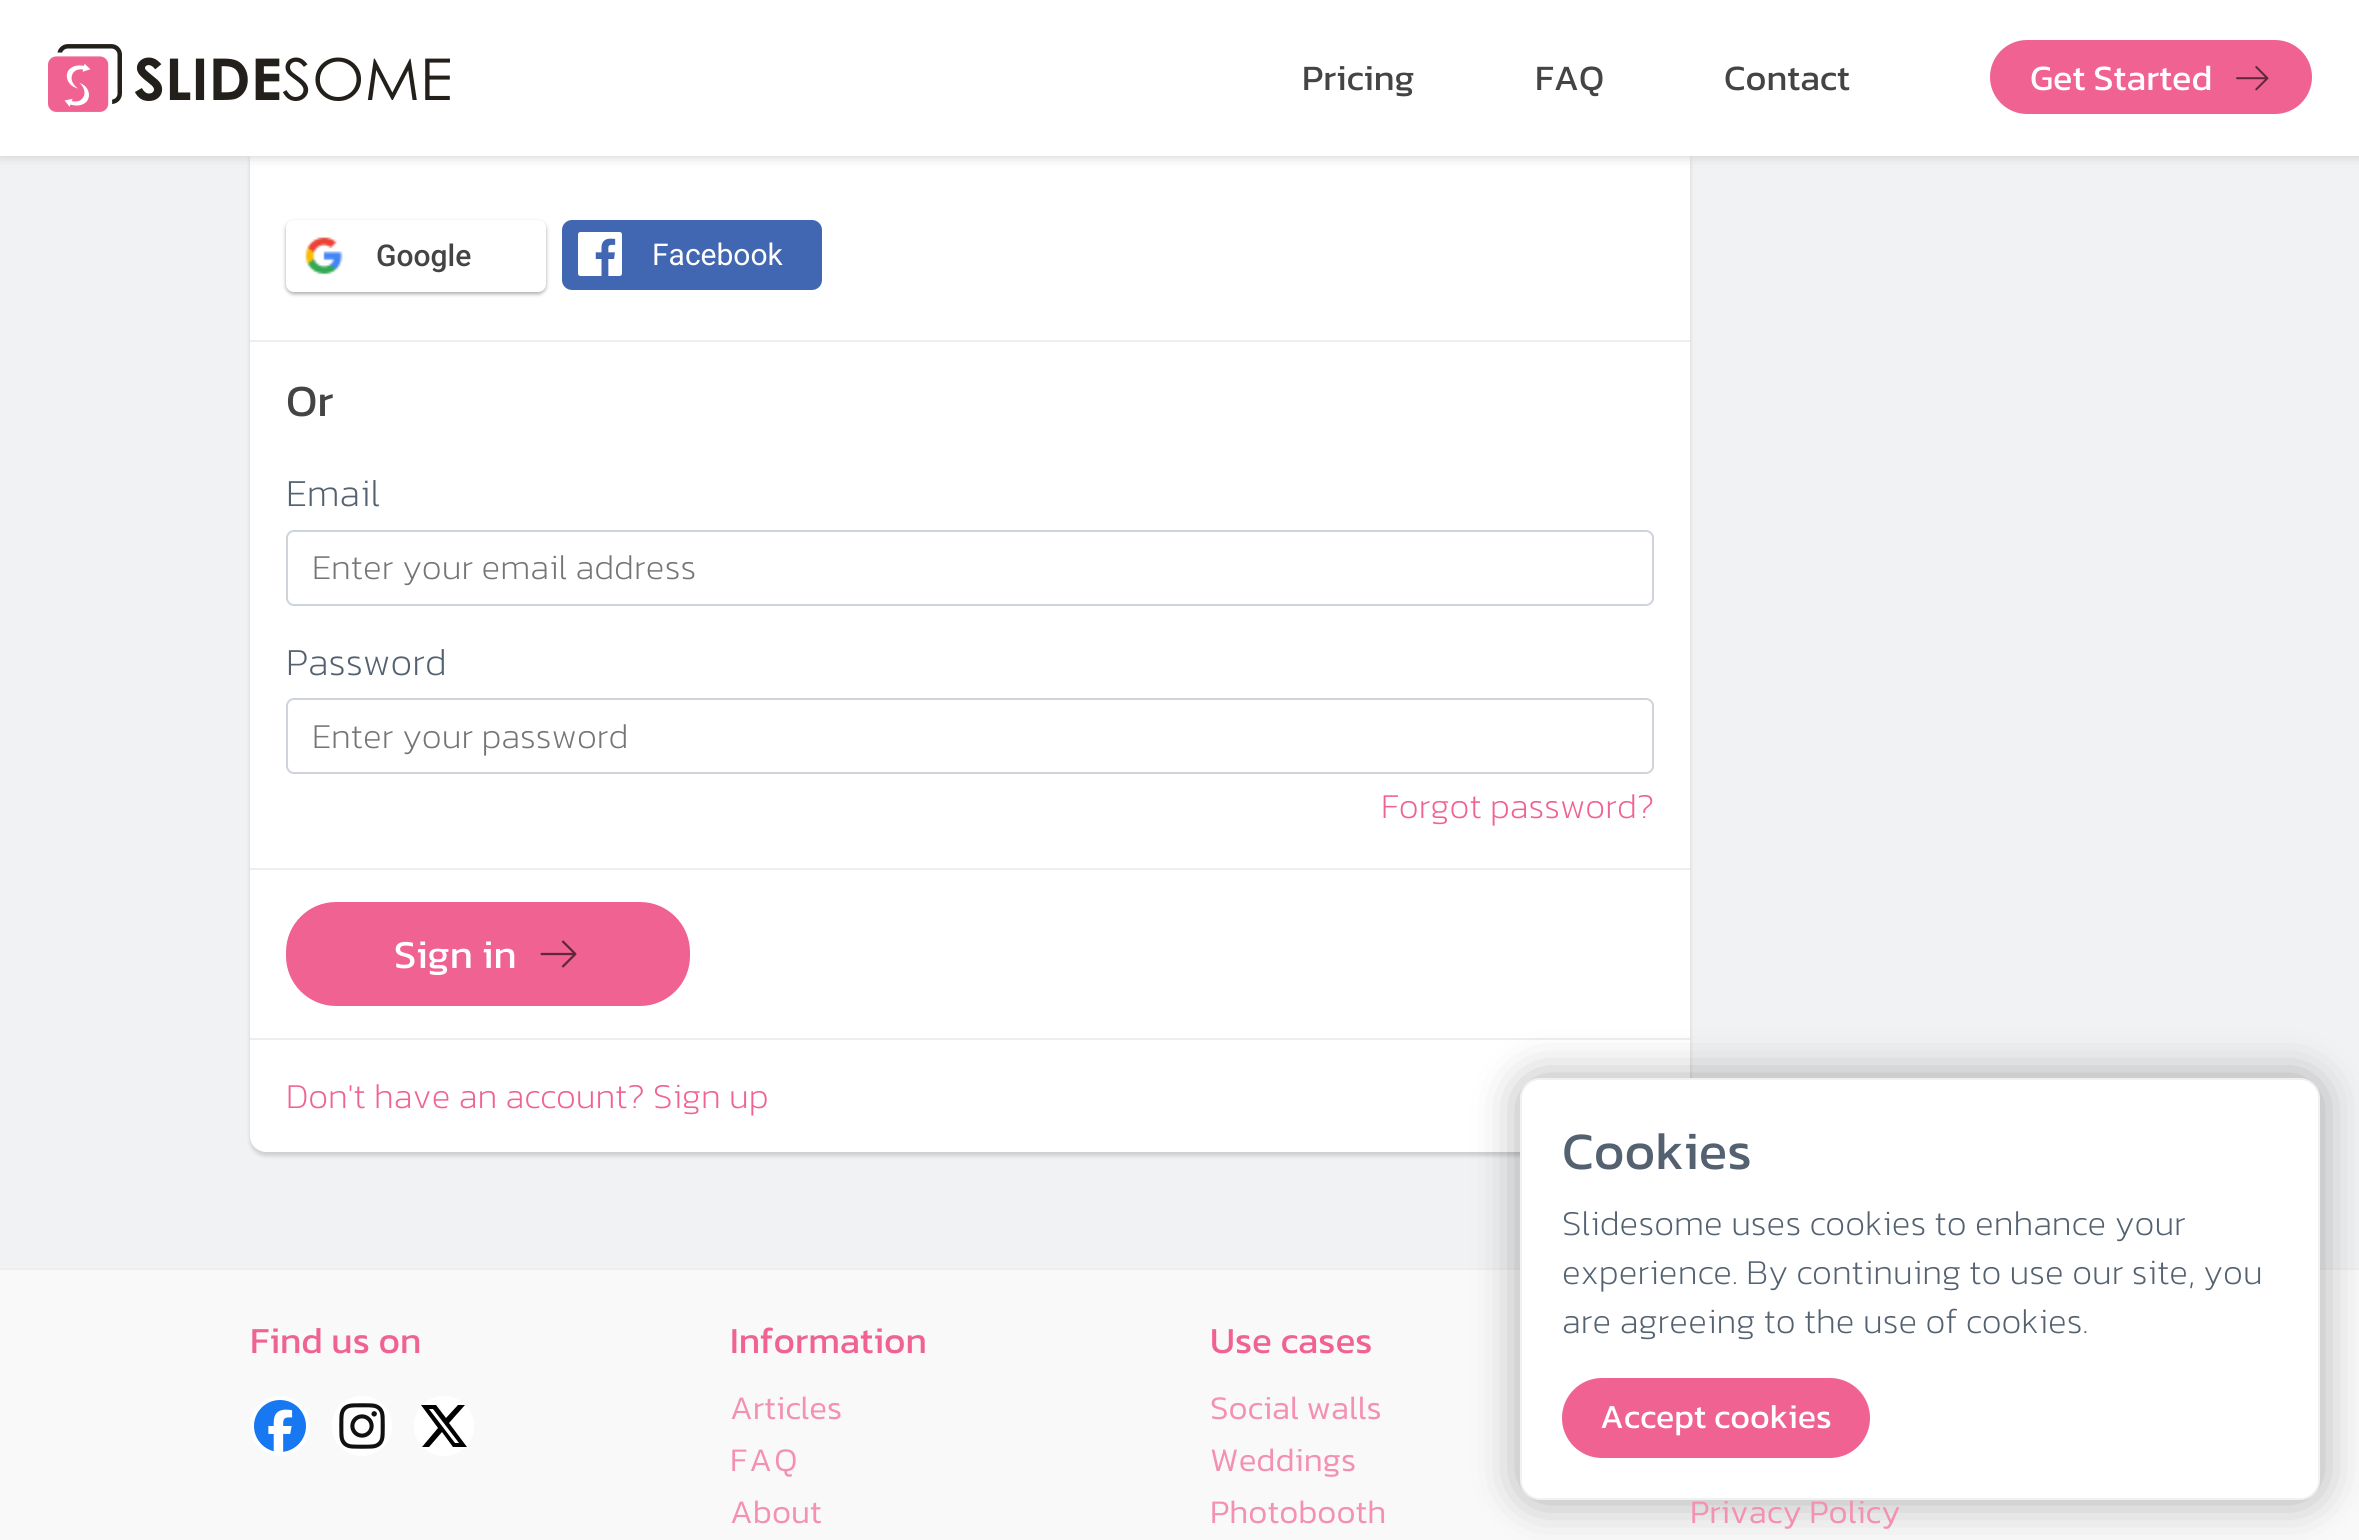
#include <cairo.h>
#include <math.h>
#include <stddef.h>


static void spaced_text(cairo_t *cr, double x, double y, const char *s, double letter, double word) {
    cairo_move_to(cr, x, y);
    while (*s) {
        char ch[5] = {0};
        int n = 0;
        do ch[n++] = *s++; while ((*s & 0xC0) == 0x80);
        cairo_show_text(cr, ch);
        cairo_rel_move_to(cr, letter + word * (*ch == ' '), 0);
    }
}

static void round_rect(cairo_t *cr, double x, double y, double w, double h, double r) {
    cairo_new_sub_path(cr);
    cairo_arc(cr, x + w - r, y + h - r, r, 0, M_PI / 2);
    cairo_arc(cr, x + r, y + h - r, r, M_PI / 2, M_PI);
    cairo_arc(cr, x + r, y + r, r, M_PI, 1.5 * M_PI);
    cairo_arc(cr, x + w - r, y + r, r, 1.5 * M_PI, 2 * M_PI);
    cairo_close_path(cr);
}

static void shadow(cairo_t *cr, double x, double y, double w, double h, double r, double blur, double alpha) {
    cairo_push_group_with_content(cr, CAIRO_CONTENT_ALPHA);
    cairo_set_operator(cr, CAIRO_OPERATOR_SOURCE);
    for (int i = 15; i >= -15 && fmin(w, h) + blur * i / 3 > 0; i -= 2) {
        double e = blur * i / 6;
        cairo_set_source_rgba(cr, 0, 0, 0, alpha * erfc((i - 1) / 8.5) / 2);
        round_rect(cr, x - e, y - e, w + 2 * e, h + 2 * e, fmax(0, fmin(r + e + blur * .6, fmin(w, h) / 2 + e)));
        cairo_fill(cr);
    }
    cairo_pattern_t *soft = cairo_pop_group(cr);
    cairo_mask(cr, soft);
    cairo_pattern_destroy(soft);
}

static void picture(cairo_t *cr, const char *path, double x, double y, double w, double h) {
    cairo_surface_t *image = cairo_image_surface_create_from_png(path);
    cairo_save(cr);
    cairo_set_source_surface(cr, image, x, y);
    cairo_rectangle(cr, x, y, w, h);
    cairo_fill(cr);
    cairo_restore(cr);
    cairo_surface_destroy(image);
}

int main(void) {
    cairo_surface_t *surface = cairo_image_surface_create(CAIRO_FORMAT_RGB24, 2359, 1540);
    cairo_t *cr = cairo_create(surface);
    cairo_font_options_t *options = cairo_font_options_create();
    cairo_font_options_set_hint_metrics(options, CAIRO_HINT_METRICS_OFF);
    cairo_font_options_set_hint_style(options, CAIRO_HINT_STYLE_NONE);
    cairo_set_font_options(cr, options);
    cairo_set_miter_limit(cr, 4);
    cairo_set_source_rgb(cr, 0.945, 0.949, 0.957);
    cairo_paint(cr);
    cairo_set_source_rgb(cr, 0, 0, 0);
    shadow(cr, 250, 96, 1440, 1060, 16, 2, 0.15);
    cairo_set_source_rgb(cr, 1, 1, 1);
    round_rect(cr, 250, 92, 1440, 1060, 16);
    cairo_fill(cr);
    cairo_set_source_rgb(cr, 0.8, 0.8, 0.8);
    shadow(cr, 0, 0, 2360, 156, 0, 6, 1);
    cairo_set_source_rgb(cr, 1, 1, 1);
    cairo_rectangle(cr, 0, 0, 2359, 156);
    cairo_fill(cr);
    picture(cr, "img1.png", 48, 44, 402, 68);
    cairo_select_font_face(cr, "Kanit", CAIRO_FONT_SLANT_NORMAL, CAIRO_FONT_WEIGHT_NORMAL);
    cairo_set_font_size(cr, 36);
    cairo_set_source_rgb(cr, 0.267, 0.267, 0.267);
    cairo_move_to(cr, 1302, 90);
    cairo_show_text(cr, "Pricing");
    cairo_move_to(cr, 1535, 90);
    cairo_show_text(cr, "FAQ");
    cairo_move_to(cr, 1724, 90);
    cairo_show_text(cr, "Contact");
    cairo_set_source_rgb(cr, 0.941, 0.384, 0.573);
    round_rect(cr, 1992, 42, 318, 70, 35);
    cairo_fill_preserve(cr);
    cairo_set_line_width(cr, 4);
    cairo_stroke(cr);
    cairo_set_source_rgb(cr, 1, 1, 1);
    cairo_move_to(cr, 2030, 90);
    cairo_show_text(cr, "Get Started");
    picture(cr, "img2.png", 2236, 66, 33, 25);
    cairo_set_source_rgb(cr, 0.667, 0.667, 0.667);
    shadow(cr, 286, 222, 260, 72, 8, 2, 1);
    cairo_set_source_rgb(cr, 1, 1, 1);
    round_rect(cr, 286, 220, 260, 72, 8);
    cairo_fill(cr);
    picture(cr, "img3.png", 305, 237, 38, 38);
    cairo_select_font_face(cr, "Roboto Medium", CAIRO_FONT_SLANT_NORMAL, CAIRO_FONT_WEIGHT_NORMAL);
    cairo_set_font_size(cr, 30);
    cairo_set_source_rgb(cr, 0.267, 0.267, 0.267);
    cairo_move_to(cr, 376, 266);
    cairo_show_text(cr, "Google");
    cairo_set_source_rgb(cr, 0.259, 0.404, 0.698);
    round_rect(cr, 562, 220, 260, 70, 10);
    cairo_fill(cr);
    picture(cr, "img4.png", 578, 232, 44, 44);
    cairo_select_font_face(cr, "Roboto", CAIRO_FONT_SLANT_NORMAL, CAIRO_FONT_WEIGHT_NORMAL);
    cairo_set_source_rgb(cr, 1, 1, 1);
    cairo_move_to(cr, 652, 265);
    cairo_show_text(cr, "Facebook");
    cairo_set_source_rgb(cr, 0.933, 0.933, 0.933);
    cairo_rectangle(cr, 250, 340, 1440, 2);
    cairo_fill(cr);
    cairo_select_font_face(cr, "Kanit", CAIRO_FONT_SLANT_NORMAL, CAIRO_FONT_WEIGHT_NORMAL);
    cairo_set_font_size(cr, 45);
    cairo_set_source_rgb(cr, 0.267, 0.267, 0.267);
    cairo_move_to(cr, 286, 416);
    cairo_show_text(cr, "Or");
    cairo_select_font_face(cr, "Kanit Light", CAIRO_FONT_SLANT_NORMAL, CAIRO_FONT_WEIGHT_NORMAL);
    cairo_set_font_size(cr, 38.5);
    cairo_set_source_rgb(cr, 0.325, 0.38, 0.443);
    cairo_move_to(cr, 286, 506);
    cairo_show_text(cr, "Email");
    round_rect(cr, 287, 531, 1366, 74, 7);
    cairo_set_source_rgb(cr, 0.808, 0.831, 0.855);
    cairo_set_line_width(cr, 2);
    cairo_stroke(cr);
    cairo_set_font_size(cr, 35.25);
    cairo_set_source_rgb(cr, 0.459, 0.459, 0.459);
    cairo_move_to(cr, 312, 579);
    cairo_show_text(cr, "Enter your email address");
    cairo_set_font_size(cr, 38.5);
    cairo_set_source_rgb(cr, 0.325, 0.38, 0.443);
    cairo_move_to(cr, 286, 675);
    cairo_show_text(cr, "Password");
    round_rect(cr, 287, 699, 1366, 74, 7);
    cairo_set_source_rgb(cr, 0.808, 0.831, 0.855);
    cairo_stroke(cr);
    cairo_set_font_size(cr, 35.25);
    cairo_set_source_rgb(cr, 0.459, 0.459, 0.459);
    cairo_move_to(cr, 312, 748);
    cairo_show_text(cr, "Enter your password");
    cairo_set_source_rgb(cr, 0.941, 0.384, 0.573);
    cairo_move_to(cr, 1381, 818);
    cairo_show_text(cr, "Forgot password?");
    cairo_set_source_rgb(cr, 0.933, 0.933, 0.933);
    cairo_rectangle(cr, 250, 868, 1440, 2);
    cairo_fill(cr);
    cairo_set_source_rgb(cr, 0.941, 0.384, 0.573);
    round_rect(cr, 288, 904, 400, 100, 48);
    cairo_fill_preserve(cr);
    cairo_set_line_width(cr, 4);
    cairo_stroke(cr);
    cairo_select_font_face(cr, "Kanit", CAIRO_FONT_SLANT_NORMAL, CAIRO_FONT_WEIGHT_NORMAL);
    cairo_set_font_size(cr, 40);
    cairo_set_source_rgb(cr, 1, 1, 1);
    cairo_move_to(cr, 394, 968);
    cairo_show_text(cr, "Sign in");
    picture(cr, "img5.png", 540, 940, 37, 28);
    cairo_set_source_rgb(cr, 0.933, 0.933, 0.933);
    cairo_rectangle(cr, 250, 1038, 1440, 2);
    cairo_fill(cr);
    cairo_select_font_face(cr, "Kanit Light", CAIRO_FONT_SLANT_NORMAL, CAIRO_FONT_WEIGHT_NORMAL);
    cairo_set_font_size(cr, 35.25);
    cairo_set_source_rgb(cr, 0.941, 0.384, 0.573);
    cairo_move_to(cr, 286, 1108);
    cairo_show_text(cr, "Don't have an account? Sign up");
    cairo_set_source_rgb(cr, 0.973, 0.973, 0.973);
    cairo_rectangle(cr, 0, 1270, 2359, 270);
    cairo_fill(cr);
    cairo_set_source_rgb(cr, 0.933, 0.933, 0.933);
    cairo_rectangle(cr, 0, 1268, 2359, 2);
    cairo_fill(cr);
    cairo_set_source_rgb(cr, 0, 0, 0);
    shadow(cr, 1518, 1076, 804, 426, 22, 22, 0.3);
    cairo_set_source_rgb(cr, 1, 1, 1);
    round_rect(cr, 1521, 1079, 798, 420, 19);
    cairo_fill_preserve(cr);
    cairo_set_source_rgb(cr, 0.945, 0.945, 0.945);
    cairo_set_line_width(cr, 2);
    cairo_stroke(cr);
    cairo_select_font_face(cr, "Kanit", CAIRO_FONT_SLANT_NORMAL, CAIRO_FONT_WEIGHT_NORMAL);
    cairo_set_font_size(cr, 53);
    cairo_set_source_rgb(cr, 0.325, 0.38, 0.443);
    cairo_move_to(cr, 1562, 1169);
    cairo_show_text(cr, "Cookies");
    cairo_select_font_face(cr, "Kanit Light", CAIRO_FONT_SLANT_NORMAL, CAIRO_FONT_WEIGHT_NORMAL);
    cairo_set_font_size(cr, 35.25);
    cairo_move_to(cr, 1562, 1235);
    cairo_show_text(cr, "Slidesome uses cookies to enhance your");
    cairo_move_to(cr, 1562, 1284);
    cairo_show_text(cr, "experience. By continuing to use our site, you");
    cairo_move_to(cr, 1562, 1333);
    cairo_show_text(cr, "are agreeing to the use of cookies.");
    cairo_set_source_rgb(cr, 0.941, 0.384, 0.573);
    round_rect(cr, 1563, 1379, 306, 78, 39);
    cairo_fill_preserve(cr);
    cairo_stroke(cr);
    cairo_select_font_face(cr, "Kanit", CAIRO_FONT_SLANT_NORMAL, CAIRO_FONT_WEIGHT_NORMAL);
    cairo_set_font_size(cr, 34);
    cairo_set_source_rgb(cr, 1, 1, 1);
    cairo_move_to(cr, 1600, 1428);
    cairo_show_text(cr, "Accept cookies");
    cairo_set_font_size(cr, 37);
    cairo_set_source_rgb(cr, 0.941, 0.384, 0.573);
    cairo_move_to(cr, 250, 1353);
    cairo_show_text(cr, "Find us on");
    cairo_set_source_rgb(cr, 1, 1, 1);
    cairo_new_path(cr);
    cairo_arc(cr, 280, 1426, 30, 0, 2 * M_PI);
    cairo_fill(cr);
    picture(cr, "img6.png", 254, 1400, 52, 52);
    cairo_arc(cr, 362, 1426, 30, 0, 2 * M_PI);
    cairo_fill(cr);
    picture(cr, "img7.png", 339, 1403, 46, 46);
    cairo_arc(cr, 444, 1426, 30, 0, 2 * M_PI);
    cairo_fill(cr);
    cairo_set_source_rgb(cr, 0, 0, 0);
    cairo_new_path(cr);
    cairo_move_to(cr, 458, 1405);
    cairo_line_to(cr, 465, 1405);
    cairo_line_to(cr, 449, 1423);
    cairo_line_to(cr, 467, 1447);
    cairo_line_to(cr, 453, 1447);
    cairo_line_to(cr, 442, 1432);
    cairo_line_to(cr, 429, 1447);
    cairo_line_to(cr, 422, 1447);
    cairo_line_to(cr, 438, 1428);
    cairo_line_to(cr, 421, 1405);
    cairo_line_to(cr, 436, 1405);
    cairo_line_to(cr, 446, 1418);
    cairo_close_path(cr);
    cairo_move_to(cr, 455, 1443);
    cairo_line_to(cr, 459, 1443);
    cairo_line_to(cr, 433, 1409);
    cairo_line_to(cr, 429, 1409);
    cairo_close_path(cr);
    cairo_fill(cr);
    cairo_set_source_rgb(cr, 0.941, 0.384, 0.573);
    cairo_move_to(cr, 730, 1353);
    cairo_show_text(cr, "Information");
    cairo_select_font_face(cr, "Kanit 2 Light", CAIRO_FONT_SLANT_NORMAL, CAIRO_FONT_WEIGHT_NORMAL);
    cairo_set_font_size(cr, 33.25);
    cairo_set_source_rgb(cr, 0.957, 0.569, 0.698);
    cairo_move_to(cr, 730, 1419);
    cairo_show_text(cr, "Articles");
    spaced_text(cr, 730, 1471, "FAQ", 2, 0);
    cairo_move_to(cr, 730, 1523);
    cairo_show_text(cr, "About");
    cairo_select_font_face(cr, "Kanit", CAIRO_FONT_SLANT_NORMAL, CAIRO_FONT_WEIGHT_NORMAL);
    cairo_set_font_size(cr, 37);
    cairo_set_source_rgb(cr, 0.941, 0.384, 0.573);
    cairo_move_to(cr, 1210, 1353);
    cairo_show_text(cr, "Use cases");
    cairo_select_font_face(cr, "Kanit 2 Light", CAIRO_FONT_SLANT_NORMAL, CAIRO_FONT_WEIGHT_NORMAL);
    cairo_set_font_size(cr, 33.25);
    cairo_set_source_rgb(cr, 0.957, 0.569, 0.698);
    cairo_move_to(cr, 1210, 1419);
    cairo_show_text(cr, "Social walls");
    cairo_move_to(cr, 1210, 1471);
    cairo_show_text(cr, "Weddings");
    cairo_move_to(cr, 1210, 1523);
    cairo_show_text(cr, "Photobooth");
    cairo_move_to(cr, 1690, 1523);
    cairo_show_text(cr, "Privacy Policy");
    cairo_surface_write_to_png(surface, "page.png");
    cairo_font_options_destroy(options);
    cairo_destroy(cr);
    cairo_surface_destroy(surface);
    return 0;
}
